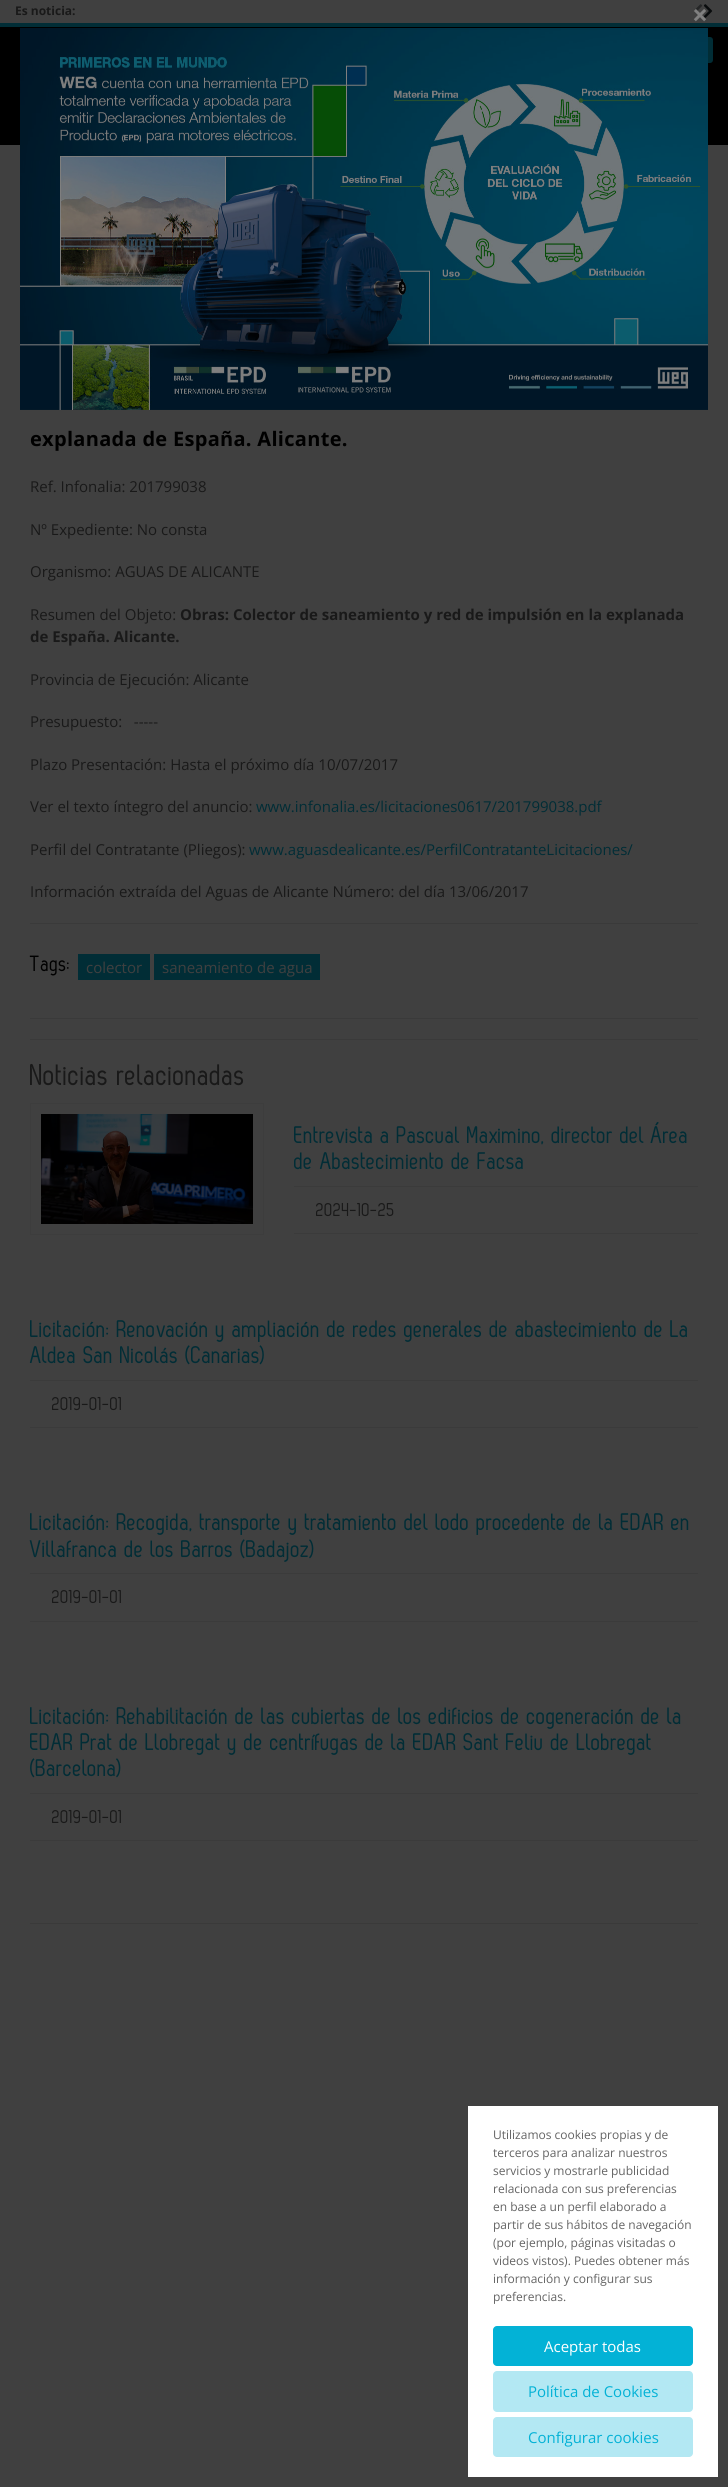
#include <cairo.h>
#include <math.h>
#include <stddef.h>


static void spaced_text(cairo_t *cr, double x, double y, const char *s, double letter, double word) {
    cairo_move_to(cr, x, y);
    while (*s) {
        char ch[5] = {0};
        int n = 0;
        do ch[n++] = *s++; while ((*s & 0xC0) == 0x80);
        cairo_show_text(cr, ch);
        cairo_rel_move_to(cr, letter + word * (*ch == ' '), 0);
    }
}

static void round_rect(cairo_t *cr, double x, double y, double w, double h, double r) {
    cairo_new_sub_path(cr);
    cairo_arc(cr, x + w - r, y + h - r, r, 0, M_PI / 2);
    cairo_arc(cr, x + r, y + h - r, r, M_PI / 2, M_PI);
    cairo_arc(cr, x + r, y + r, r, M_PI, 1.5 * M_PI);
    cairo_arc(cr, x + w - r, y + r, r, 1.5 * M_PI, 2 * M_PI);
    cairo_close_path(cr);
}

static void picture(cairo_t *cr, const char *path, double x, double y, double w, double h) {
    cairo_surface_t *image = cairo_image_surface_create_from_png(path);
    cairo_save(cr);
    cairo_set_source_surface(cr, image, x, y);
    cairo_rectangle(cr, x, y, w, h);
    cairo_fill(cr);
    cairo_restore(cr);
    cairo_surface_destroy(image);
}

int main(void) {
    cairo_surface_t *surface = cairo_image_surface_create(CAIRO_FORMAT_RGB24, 728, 2487);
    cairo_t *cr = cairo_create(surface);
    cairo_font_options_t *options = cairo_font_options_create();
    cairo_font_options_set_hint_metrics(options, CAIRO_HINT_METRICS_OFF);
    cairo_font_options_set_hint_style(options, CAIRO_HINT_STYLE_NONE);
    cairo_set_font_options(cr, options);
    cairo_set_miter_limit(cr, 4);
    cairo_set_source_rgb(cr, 0.251, 0.251, 0.251);
    cairo_paint(cr);
    cairo_select_font_face(cr, "Open Sans", CAIRO_FONT_SLANT_NORMAL, CAIRO_FONT_WEIGHT_BOLD);
    cairo_set_font_size(cr, 12);
    cairo_set_source_rgb(cr, 0.098, 0.098, 0.098);
    cairo_move_to(cr, 15, 15);
    cairo_show_text(cr, "Es noticia:");
    picture(cr, "img1.png", 694, 4, 9, 14);
    picture(cr, "img2.png", 703, 4, 10, 14);
    cairo_set_font_size(cr, 28);
    cairo_set_source_rgb(cr, 0.502, 0.502, 0.502);
    cairo_move_to(cr, 692, 25);
    cairo_show_text(cr, "×");
    cairo_set_source_rgb(cr, 0, 0, 0);
    cairo_rectangle(cr, 0, 27, 728, 118);
    cairo_fill(cr);
    cairo_set_source_rgb(cr, 0.004, 0.176, 0.212);
    round_rect(cr, 652, 37, 61, 26, 3);
    cairo_fill(cr);
    picture(cr, "img3.png", 20, 28, 688, 382);
    cairo_rectangle(cr, 0, 23, 728, 4);
    cairo_fill(cr);
    cairo_set_font_size(cr, 20);
    cairo_set_source_rgb(cr, 0, 0, 0);
    spaced_text(cr, 30, 446, "explanada de España. Alicante.", 0.3, 0);
    cairo_select_font_face(cr, "Open Sans", CAIRO_FONT_SLANT_NORMAL, CAIRO_FONT_WEIGHT_NORMAL);
    cairo_set_font_size(cr, 15);
    cairo_set_source_rgb(cr, 0.098, 0.098, 0.098);
    cairo_move_to(cr, 30, 492);
    cairo_show_text(cr, "Ref. Infonalia: 201799038");
    cairo_move_to(cr, 30, 535);
    cairo_show_text(cr, "Nº Expediente: No consta");
    cairo_move_to(cr, 30, 577);
    cairo_show_text(cr, "Organismo: AGUAS DE ALICANTE");
    cairo_move_to(cr, 30, 620);
    cairo_show_text(cr, "Resumen del Objeto:");
    cairo_select_font_face(cr, "Open Sans", CAIRO_FONT_SLANT_NORMAL, CAIRO_FONT_WEIGHT_BOLD);
    cairo_move_to(cr, 180, 620);
    cairo_show_text(cr, "Obras: Colector de saneamiento y red de impulsión en la explanada");
    cairo_move_to(cr, 30, 642);
    cairo_show_text(cr, "de España. Alicante.");
    cairo_select_font_face(cr, "Open Sans", CAIRO_FONT_SLANT_NORMAL, CAIRO_FONT_WEIGHT_NORMAL);
    cairo_move_to(cr, 30, 685);
    cairo_show_text(cr, "Provincia de Ejecución: Alicante");
    cairo_move_to(cr, 30, 727);
    cairo_show_text(cr, "Presupuesto:   -----");
    cairo_move_to(cr, 30, 770);
    cairo_show_text(cr, "Plazo Presentación: Hasta el próximo día 10/07/2017");
    cairo_move_to(cr, 30, 812);
    cairo_show_text(cr, "Ver el texto íntegro del anuncio:");
    cairo_set_source_rgb(cr, 0.004, 0.176, 0.212);
    cairo_move_to(cr, 256, 812);
    cairo_show_text(cr, "www.infonalia.es/licitaciones0617/201799038.pdf");
    cairo_set_source_rgb(cr, 0.098, 0.098, 0.098);
    cairo_move_to(cr, 30, 855);
    cairo_show_text(cr, "Perfil del Contratante (Pliegos):");
    cairo_set_source_rgb(cr, 0.004, 0.176, 0.212);
    cairo_move_to(cr, 249, 855);
    cairo_show_text(cr, "www.aguasdealicante.es/PerfilContratanteLicitaciones/");
    cairo_set_source_rgb(cr, 0.098, 0.098, 0.098);
    cairo_move_to(cr, 30, 897);
    cairo_show_text(cr, "Información extraída del Aguas de Alicante Número: del día 13/06/2017");
    cairo_set_source_rgb(cr, 0.227, 0.227, 0.227);
    cairo_rectangle(cr, 30, 923, 668, 1);
    cairo_fill(cr);
    cairo_select_font_face(cr, "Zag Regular", CAIRO_FONT_SLANT_NORMAL, CAIRO_FONT_WEIGHT_NORMAL);
    cairo_set_font_size(cr, 22);
    cairo_set_source_rgb(cr, 0, 0, 0);
    cairo_move_to(cr, 30, 971);
    cairo_show_text(cr, "Tags:");
    cairo_set_source_rgb(cr, 0.004, 0.176, 0.212);
    cairo_rectangle(cr, 78, 954, 72, 26);
    cairo_fill(cr);
    cairo_select_font_face(cr, "Open Sans", CAIRO_FONT_SLANT_NORMAL, CAIRO_FONT_WEIGHT_NORMAL);
    cairo_set_font_size(cr, 15);
    cairo_set_source_rgb(cr, 0.251, 0.251, 0.251);
    cairo_move_to(cr, 86, 973);
    cairo_show_text(cr, "colector");
    cairo_set_source_rgb(cr, 0.004, 0.176, 0.212);
    cairo_rectangle(cr, 154, 954, 166, 26);
    cairo_fill(cr);
    cairo_set_source_rgb(cr, 0.251, 0.251, 0.251);
    cairo_move_to(cr, 162, 973);
    cairo_show_text(cr, "saneamiento de agua");
    cairo_set_source_rgb(cr, 0.227, 0.227, 0.227);
    cairo_rectangle(cr, 30, 1018, 668, 1);
    cairo_fill(cr);
    cairo_rectangle(cr, 30, 1039, 668, 1);
    cairo_fill(cr);
    cairo_select_font_face(cr, "Zag Regular", CAIRO_FONT_SLANT_NORMAL, CAIRO_FONT_WEIGHT_NORMAL);
    cairo_set_font_size(cr, 30);
    cairo_set_source_rgb(cr, 0.098, 0.098, 0.098);
    cairo_move_to(cr, 30, 1085);
    cairo_show_text(cr, "Noticias relacionadas");
    cairo_rectangle(cr, 30.5, 1103.5, 233, 131);
    cairo_set_source_rgb(cr, 0.239, 0.239, 0.239);
    cairo_set_line_width(cr, 1);
    cairo_stroke(cr);
    picture(cr, "img4.png", 41, 1114, 212, 110);
    cairo_set_font_size(cr, 24);
    cairo_set_source_rgb(cr, 0.004, 0.176, 0.212);
    cairo_move_to(cr, 294, 1143);
    cairo_show_text(cr, "Entrevista a Pascual Maximino, director del Área");
    cairo_move_to(cr, 294, 1169);
    cairo_show_text(cr, "de Abastecimiento de Facsa");
    cairo_set_source_rgb(cr, 0.231, 0.231, 0.231);
    cairo_rectangle(cr, 294, 1186, 404, 1);
    cairo_fill(cr);
    cairo_rectangle(cr, 294, 1233, 404, 1);
    cairo_fill(cr);
    cairo_set_font_size(cr, 19);
    cairo_set_source_rgb(cr, 0.098, 0.098, 0.098);
    cairo_move_to(cr, 316, 1216);
    cairo_show_text(cr, "2024-10-25");
    cairo_set_font_size(cr, 24);
    cairo_set_source_rgb(cr, 0.004, 0.176, 0.212);
    cairo_move_to(cr, 30, 1337);
    cairo_show_text(cr, "Licitación: Renovación y ampliación de redes generales de abastecimiento de La");
    cairo_move_to(cr, 30, 1363);
    cairo_show_text(cr, "Aldea San Nicolás (Canarias)");
    cairo_set_source_rgb(cr, 0.231, 0.231, 0.231);
    cairo_rectangle(cr, 30, 1380, 668, 1);
    cairo_fill(cr);
    cairo_rectangle(cr, 30, 1427, 668, 1);
    cairo_fill(cr);
    cairo_set_font_size(cr, 19);
    cairo_set_source_rgb(cr, 0.098, 0.098, 0.098);
    cairo_move_to(cr, 52, 1410);
    cairo_show_text(cr, "2019-01-01");
    cairo_set_font_size(cr, 24);
    cairo_set_source_rgb(cr, 0.004, 0.176, 0.212);
    cairo_move_to(cr, 30, 1530);
    cairo_show_text(cr, "Licitación: Recogida, transporte y tratamiento del lodo procedente de la EDAR en");
    cairo_move_to(cr, 30, 1557);
    cairo_show_text(cr, "Villafranca de los Barros (Badajoz)");
    cairo_set_source_rgb(cr, 0.231, 0.231, 0.231);
    cairo_rectangle(cr, 30, 1573, 668, 1);
    cairo_fill(cr);
    cairo_rectangle(cr, 30, 1621, 668, 1);
    cairo_fill(cr);
    cairo_set_font_size(cr, 19);
    cairo_set_source_rgb(cr, 0.098, 0.098, 0.098);
    cairo_move_to(cr, 52, 1603);
    cairo_show_text(cr, "2019-01-01");
    cairo_set_font_size(cr, 24);
    cairo_set_source_rgb(cr, 0.004, 0.176, 0.212);
    cairo_move_to(cr, 30, 1724);
    cairo_show_text(cr, "Licitación: Rehabilitación de las cubiertas de los edificios de cogeneración de la");
    cairo_move_to(cr, 30, 1750);
    cairo_show_text(cr, "EDAR Prat de Llobregat y de centrífugas de la EDAR Sant Feliu de Llobregat");
    cairo_move_to(cr, 30, 1776);
    cairo_show_text(cr, "(Barcelona)");
    cairo_set_source_rgb(cr, 0.231, 0.231, 0.231);
    cairo_rectangle(cr, 30, 1793, 668, 1);
    cairo_fill(cr);
    cairo_rectangle(cr, 30, 1840, 668, 1);
    cairo_fill(cr);
    cairo_set_font_size(cr, 19);
    cairo_set_source_rgb(cr, 0.098, 0.098, 0.098);
    cairo_move_to(cr, 52, 1823);
    cairo_show_text(cr, "2019-01-01");
    cairo_set_source_rgb(cr, 0.227, 0.227, 0.227);
    cairo_rectangle(cr, 30, 1923, 668, 1);
    cairo_fill(cr);
    cairo_set_source_rgb(cr, 1, 1, 1);
    cairo_rectangle(cr, 468, 2106, 250, 371);
    cairo_fill(cr);
    cairo_select_font_face(cr, "Open Sans", CAIRO_FONT_SLANT_NORMAL, CAIRO_FONT_WEIGHT_NORMAL);
    cairo_set_font_size(cr, 12);
    cairo_set_source_rgb(cr, 0.392, 0.392, 0.392);
    cairo_move_to(cr, 493, 2139);
    cairo_show_text(cr, "Utilizamos cookies propias y de");
    cairo_move_to(cr, 493, 2157);
    cairo_show_text(cr, "terceros para analizar nuestros");
    cairo_move_to(cr, 493, 2175);
    cairo_show_text(cr, "servicios y mostrarle publicidad");
    cairo_move_to(cr, 493, 2193);
    cairo_show_text(cr, "relacionada con sus preferencias");
    cairo_move_to(cr, 493, 2211);
    cairo_show_text(cr, "en base a un perfil elaborado a");
    cairo_move_to(cr, 493, 2229);
    cairo_show_text(cr, "partir de sus hábitos de navegación");
    cairo_move_to(cr, 493, 2247);
    cairo_show_text(cr, "(por ejemplo, páginas visitadas o");
    cairo_move_to(cr, 493, 2265);
    cairo_show_text(cr, "videos vistos). Puedes obtener más");
    cairo_move_to(cr, 493, 2283);
    cairo_show_text(cr, "información y configurar sus");
    cairo_move_to(cr, 493, 2301);
    cairo_show_text(cr, "preferencias.");
    cairo_set_source_rgb(cr, 0.012, 0.698, 0.839);
    round_rect(cr, 493, 2326, 200, 40, 4);
    cairo_fill(cr);
    cairo_set_font_size(cr, 15);
    cairo_set_source_rgb(cr, 1, 1, 1);
    cairo_move_to(cr, 544, 2352);
    cairo_show_text(cr, "Aceptar todas");
    cairo_set_source_rgb(cr, 0.702, 0.91, 0.953);
    round_rect(cr, 493, 2371, 200, 41, 4);
    cairo_fill(cr);
    cairo_set_source_rgb(cr, 0.012, 0.698, 0.839);
    cairo_move_to(cr, 528, 2397);
    cairo_show_text(cr, "Política de Cookies");
    cairo_set_source_rgb(cr, 0.702, 0.91, 0.953);
    round_rect(cr, 493, 2417, 200, 40, 4);
    cairo_fill(cr);
    cairo_set_source_rgb(cr, 0.012, 0.698, 0.839);
    cairo_move_to(cr, 528, 2443);
    cairo_show_text(cr, "Configurar cookies");
    cairo_surface_write_to_png(surface, "page.png");
    cairo_font_options_destroy(options);
    cairo_destroy(cr);
    cairo_surface_destroy(surface);
    return 0;
}
